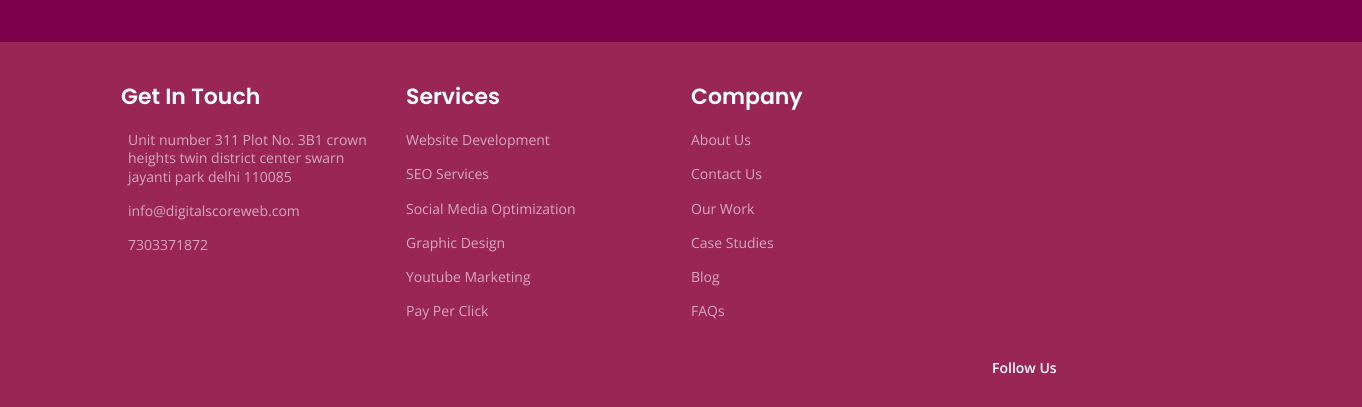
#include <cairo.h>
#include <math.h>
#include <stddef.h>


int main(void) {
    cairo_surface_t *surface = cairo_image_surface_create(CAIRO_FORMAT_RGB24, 1362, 407);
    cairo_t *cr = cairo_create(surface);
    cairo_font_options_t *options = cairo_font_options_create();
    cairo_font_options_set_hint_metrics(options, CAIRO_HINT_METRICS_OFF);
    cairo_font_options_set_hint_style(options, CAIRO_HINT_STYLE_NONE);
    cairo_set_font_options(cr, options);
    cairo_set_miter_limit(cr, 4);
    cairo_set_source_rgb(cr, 0.6, 0.149, 0.329);
    cairo_paint(cr);
    cairo_set_source_rgb(cr, 0.494, 0, 0.29);
    cairo_rectangle(cr, 0, 0, 1362, 42);
    cairo_fill(cr);
    cairo_select_font_face(cr, "Poppins SemiBold", CAIRO_FONT_SLANT_NORMAL, CAIRO_FONT_WEIGHT_NORMAL);
    cairo_set_font_size(cr, 22);
    cairo_set_source_rgb(cr, 1, 1, 1);
    cairo_move_to(cr, 121, 104);
    cairo_show_text(cr, "Get In Touch");
    cairo_select_font_face(cr, "Open Sans", CAIRO_FONT_SLANT_NORMAL, CAIRO_FONT_WEIGHT_NORMAL);
    cairo_set_font_size(cr, 14);
    cairo_set_source_rgb(cr, 0.839, 0.659, 0.733);
    cairo_move_to(cr, 128, 145);
    cairo_show_text(cr, "Unit number 311 Plot No. 3B1 crown");
    cairo_move_to(cr, 128, 163);
    cairo_show_text(cr, "heights twin district center swarn");
    cairo_move_to(cr, 128, 182);
    cairo_show_text(cr, "jayanti park delhi 110085");
    cairo_move_to(cr, 128, 216);
    cairo_show_text(cr, "info@digitalscoreweb.com");
    cairo_move_to(cr, 128, 250);
    cairo_show_text(cr, "7303371872");
    cairo_select_font_face(cr, "Poppins SemiBold", CAIRO_FONT_SLANT_NORMAL, CAIRO_FONT_WEIGHT_NORMAL);
    cairo_set_font_size(cr, 22);
    cairo_set_source_rgb(cr, 1, 1, 1);
    cairo_move_to(cr, 406, 104);
    cairo_show_text(cr, "Services");
    cairo_select_font_face(cr, "Open Sans", CAIRO_FONT_SLANT_NORMAL, CAIRO_FONT_WEIGHT_NORMAL);
    cairo_set_font_size(cr, 14);
    cairo_set_source_rgb(cr, 0.839, 0.659, 0.733);
    cairo_move_to(cr, 406, 145);
    cairo_show_text(cr, "Website Development");
    cairo_move_to(cr, 406, 179);
    cairo_show_text(cr, "SEO Services");
    cairo_move_to(cr, 406, 214);
    cairo_show_text(cr, "Social Media Optimization");
    cairo_move_to(cr, 406, 248);
    cairo_show_text(cr, "Graphic Design");
    cairo_move_to(cr, 406, 282);
    cairo_show_text(cr, "Youtube Marketing");
    cairo_move_to(cr, 406, 316);
    cairo_show_text(cr, "Pay Per Click");
    cairo_select_font_face(cr, "Poppins SemiBold", CAIRO_FONT_SLANT_NORMAL, CAIRO_FONT_WEIGHT_NORMAL);
    cairo_set_font_size(cr, 22);
    cairo_set_source_rgb(cr, 1, 1, 1);
    cairo_move_to(cr, 691, 104);
    cairo_show_text(cr, "Company");
    cairo_select_font_face(cr, "Open Sans", CAIRO_FONT_SLANT_NORMAL, CAIRO_FONT_WEIGHT_NORMAL);
    cairo_set_font_size(cr, 14);
    cairo_set_source_rgb(cr, 0.839, 0.659, 0.733);
    cairo_move_to(cr, 691, 145);
    cairo_show_text(cr, "About Us");
    cairo_move_to(cr, 691, 179);
    cairo_show_text(cr, "Contact Us");
    cairo_move_to(cr, 691, 214);
    cairo_show_text(cr, "Our Work");
    cairo_move_to(cr, 691, 248);
    cairo_show_text(cr, "Case Studies");
    cairo_move_to(cr, 691, 282);
    cairo_show_text(cr, "Blog");
    cairo_move_to(cr, 691, 316);
    cairo_show_text(cr, "FAQs");
    cairo_select_font_face(cr, "Open Sans SemiBold", CAIRO_FONT_SLANT_NORMAL, CAIRO_FONT_WEIGHT_NORMAL);
    cairo_set_source_rgb(cr, 1, 1, 1);
    cairo_move_to(cr, 992, 373);
    cairo_show_text(cr, "Follow Us");
    cairo_surface_write_to_png(surface, "page.png");
    cairo_font_options_destroy(options);
    cairo_destroy(cr);
    cairo_surface_destroy(surface);
    return 0;
}
